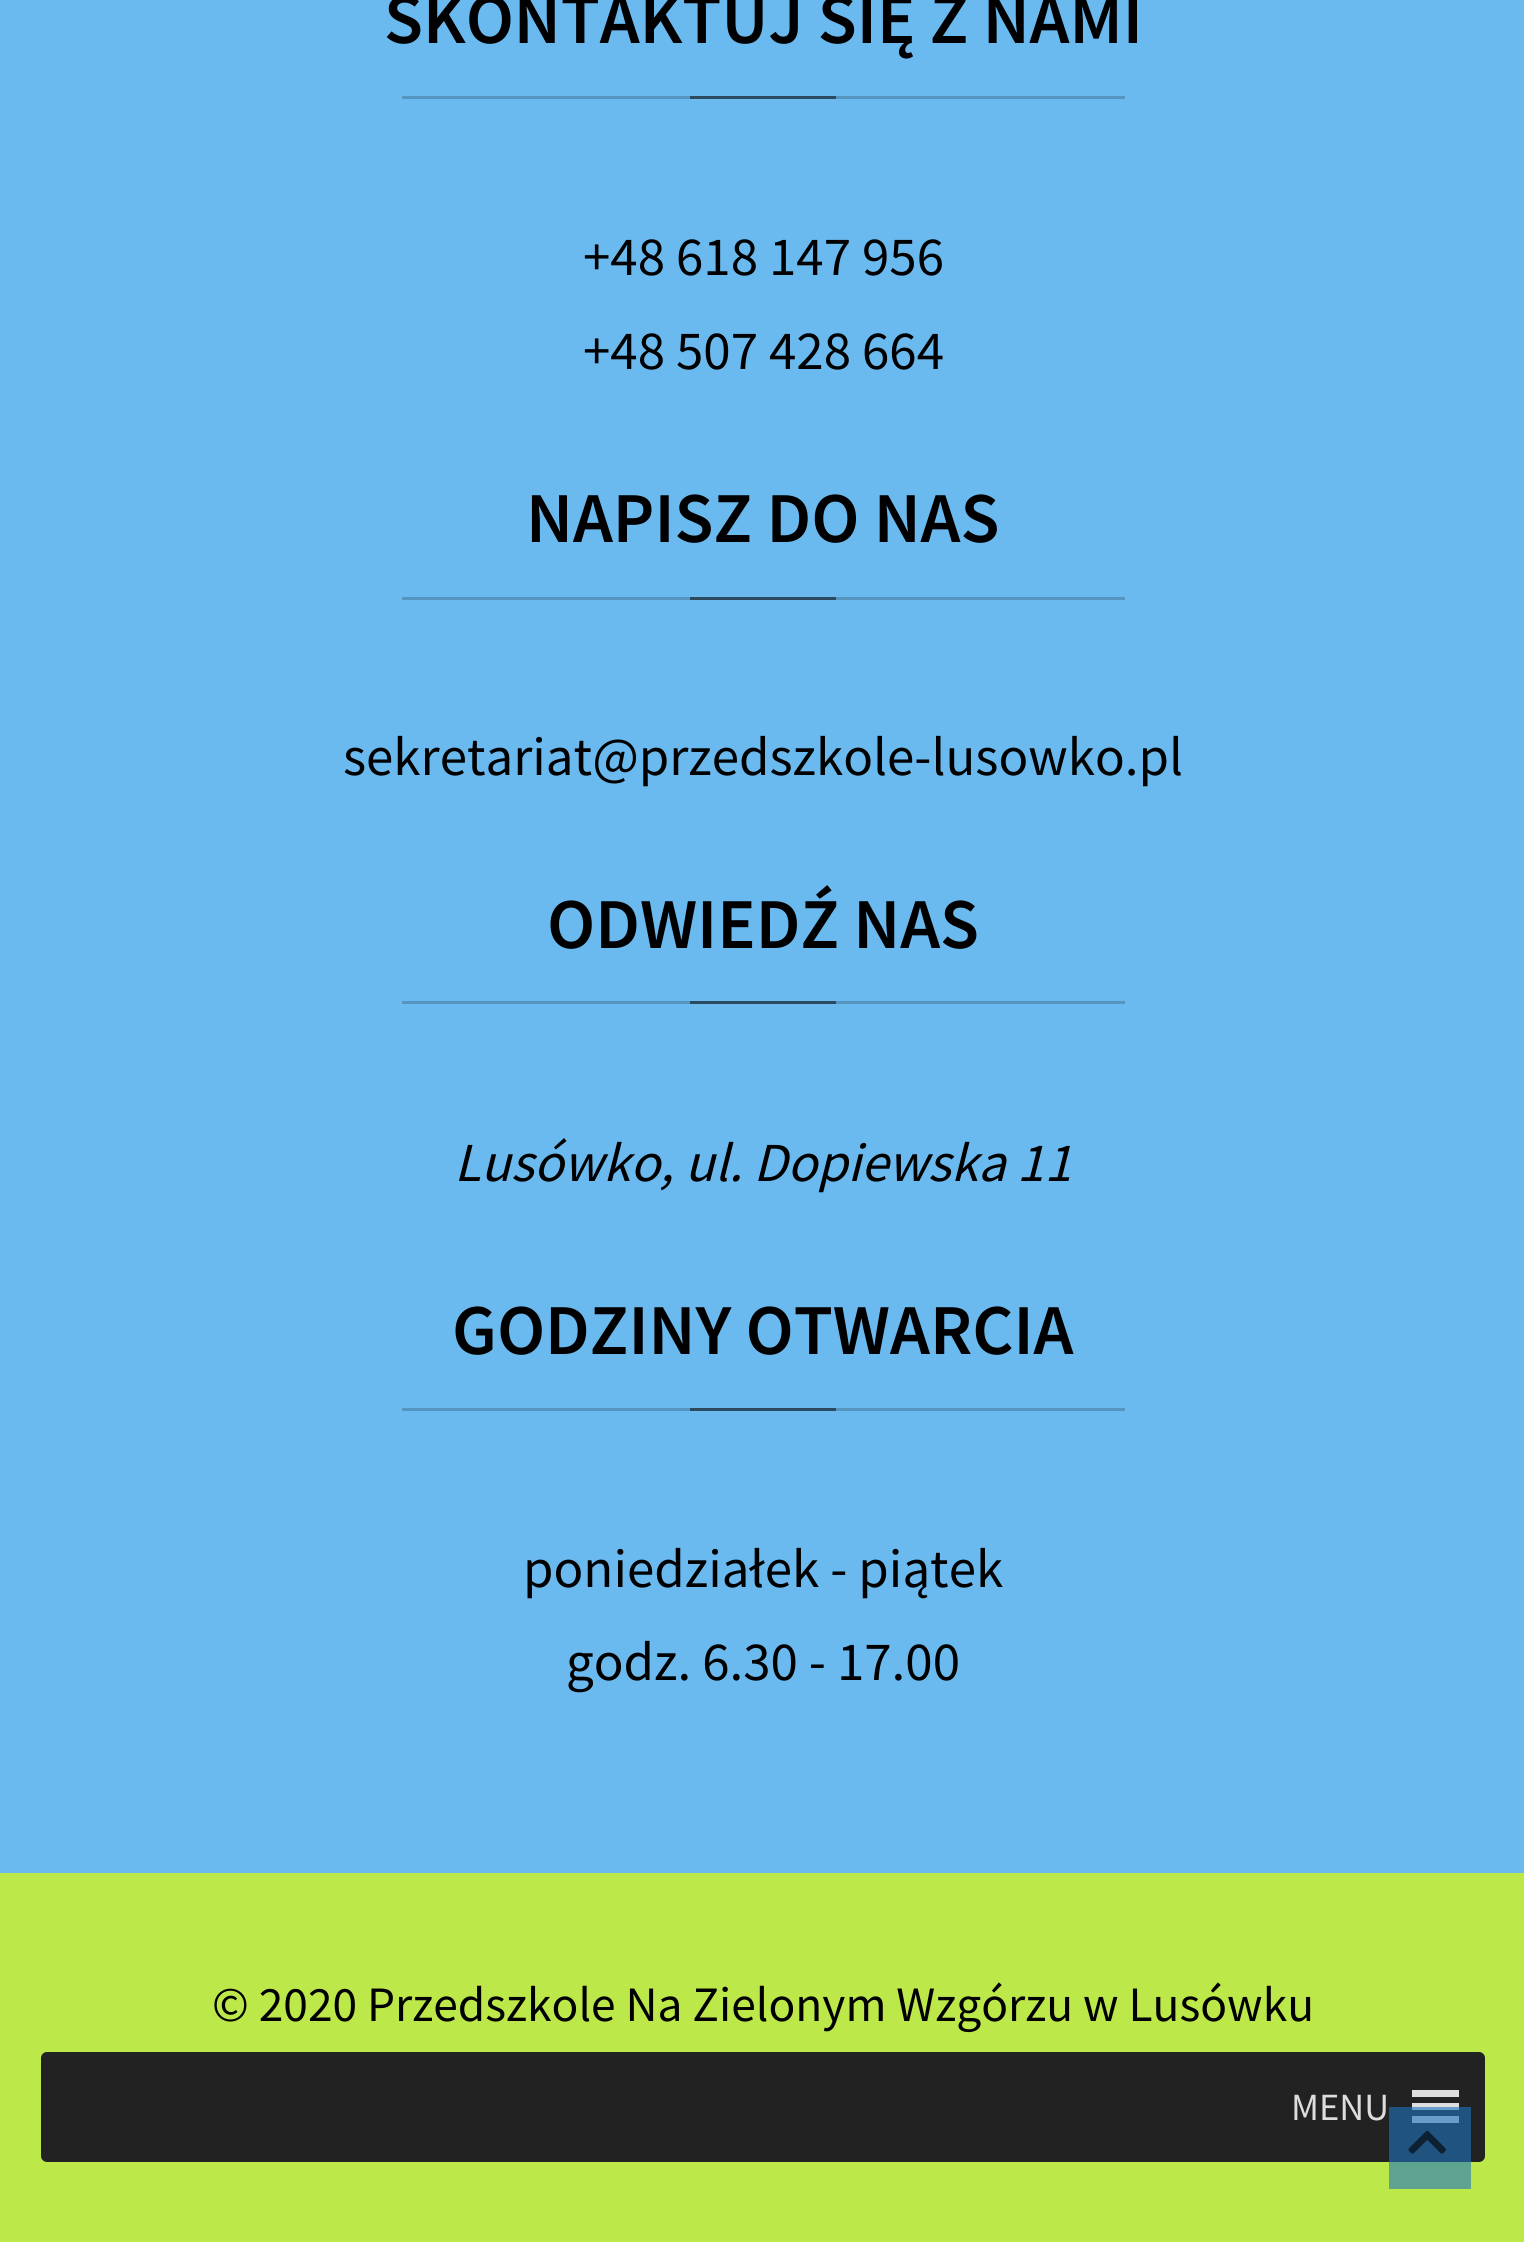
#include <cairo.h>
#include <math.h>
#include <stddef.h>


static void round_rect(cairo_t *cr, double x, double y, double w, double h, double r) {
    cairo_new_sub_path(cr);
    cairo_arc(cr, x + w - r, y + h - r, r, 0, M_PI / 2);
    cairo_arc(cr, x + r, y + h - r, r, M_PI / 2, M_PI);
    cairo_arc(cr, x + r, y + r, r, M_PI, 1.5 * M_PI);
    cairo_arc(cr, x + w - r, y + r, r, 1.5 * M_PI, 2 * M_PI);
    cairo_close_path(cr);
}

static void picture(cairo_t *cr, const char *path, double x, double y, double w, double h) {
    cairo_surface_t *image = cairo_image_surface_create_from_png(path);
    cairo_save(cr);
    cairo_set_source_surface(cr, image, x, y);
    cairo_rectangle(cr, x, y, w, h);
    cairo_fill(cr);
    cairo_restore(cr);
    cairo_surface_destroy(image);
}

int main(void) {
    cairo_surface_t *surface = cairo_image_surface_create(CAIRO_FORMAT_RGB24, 1524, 2242);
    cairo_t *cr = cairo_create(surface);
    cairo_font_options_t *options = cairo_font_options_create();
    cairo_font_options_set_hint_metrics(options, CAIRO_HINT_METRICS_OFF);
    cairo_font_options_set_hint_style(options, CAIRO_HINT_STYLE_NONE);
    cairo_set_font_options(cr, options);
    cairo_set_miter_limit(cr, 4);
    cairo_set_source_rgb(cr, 0.42, 0.729, 0.937);
    cairo_paint(cr);
    cairo_set_source_rgb(cr, 0.337, 0.584, 0.749);
    cairo_rectangle(cr, 402, 1408, 723, 3);
    cairo_fill(cr);
    cairo_rectangle(cr, 402, 1001, 723, 3);
    cairo_fill(cr);
    cairo_rectangle(cr, 402, 597, 723, 3);
    cairo_fill(cr);
    cairo_rectangle(cr, 402, 96, 723, 3);
    cairo_fill(cr);
    cairo_select_font_face(cr, "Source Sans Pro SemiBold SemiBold", CAIRO_FONT_SLANT_NORMAL, CAIRO_FONT_WEIGHT_NORMAL);
    cairo_set_font_size(cr, 71.5);
    cairo_set_source_rgb(cr, 0, 0, 0);
    cairo_move_to(cr, 384, 43);
    cairo_show_text(cr, "SKONTAKTUJ SIĘ Z NAMI");
    cairo_set_source_rgb(cr, 0.169, 0.29, 0.376);
    cairo_rectangle(cr, 690, 96, 146, 3);
    cairo_fill(cr);
    cairo_select_font_face(cr, "Source Sans Pro", CAIRO_FONT_SLANT_NORMAL, CAIRO_FONT_WEIGHT_NORMAL);
    cairo_set_font_size(cr, 55);
    cairo_set_source_rgb(cr, 0, 0, 0);
    cairo_move_to(cr, 583, 275);
    cairo_show_text(cr, "+48 618 147 956");
    cairo_move_to(cr, 583, 369);
    cairo_show_text(cr, "+48 507 428 664");
    cairo_select_font_face(cr, "Source Sans Pro SemiBold SemiBold", CAIRO_FONT_SLANT_NORMAL, CAIRO_FONT_WEIGHT_NORMAL);
    cairo_set_font_size(cr, 71.5);
    cairo_move_to(cr, 526, 542);
    cairo_show_text(cr, "NAPISZ DO NAS");
    cairo_set_source_rgb(cr, 0.169, 0.29, 0.376);
    cairo_rectangle(cr, 690, 597, 146, 3);
    cairo_fill(cr);
    cairo_select_font_face(cr, "Source Sans Pro", CAIRO_FONT_SLANT_NORMAL, CAIRO_FONT_WEIGHT_NORMAL);
    cairo_set_font_size(cr, 55);
    cairo_set_source_rgb(cr, 0, 0, 0);
    cairo_move_to(cr, 343, 775);
    cairo_show_text(cr, "sekretariat@przedszkole-lusowko.pl");
    cairo_select_font_face(cr, "Source Sans Pro SemiBold SemiBold", CAIRO_FONT_SLANT_NORMAL, CAIRO_FONT_WEIGHT_NORMAL);
    cairo_set_font_size(cr, 71.5);
    cairo_move_to(cr, 547, 948);
    cairo_show_text(cr, "ODWIEDŹ NAS");
    cairo_set_source_rgb(cr, 0.169, 0.29, 0.376);
    cairo_rectangle(cr, 690, 1001, 146, 3);
    cairo_fill(cr);
    cairo_select_font_face(cr, "Source Sans Pro", CAIRO_FONT_SLANT_ITALIC, CAIRO_FONT_WEIGHT_NORMAL);
    cairo_set_font_size(cr, 55);
    cairo_set_source_rgb(cr, 0, 0, 0);
    cairo_move_to(cr, 454, 1181);
    cairo_show_text(cr, "Lusówko, ul. Dopiewska 11");
    cairo_select_font_face(cr, "Source Sans Pro SemiBold SemiBold", CAIRO_FONT_SLANT_NORMAL, CAIRO_FONT_WEIGHT_NORMAL);
    cairo_set_font_size(cr, 71.5);
    cairo_move_to(cr, 452, 1354);
    cairo_show_text(cr, "GODZINY OTWARCIA");
    cairo_set_source_rgb(cr, 0.169, 0.29, 0.376);
    cairo_rectangle(cr, 690, 1408, 146, 3);
    cairo_fill(cr);
    cairo_select_font_face(cr, "Source Sans Pro", CAIRO_FONT_SLANT_NORMAL, CAIRO_FONT_WEIGHT_NORMAL);
    cairo_set_font_size(cr, 55);
    cairo_set_source_rgb(cr, 0, 0, 0);
    cairo_move_to(cr, 523, 1587);
    cairo_show_text(cr, "poniedziałek - piątek");
    cairo_move_to(cr, 566, 1680);
    cairo_show_text(cr, "godz. 6.30 - 17.00");
    cairo_set_source_rgb(cr, 0.741, 0.91, 0.29);
    cairo_rectangle(cr, 0, 1873, 1524, 369);
    cairo_fill(cr);
    cairo_set_font_size(cr, 49.5);
    cairo_set_source_rgb(cr, 0, 0, 0);
    cairo_move_to(cr, 212, 2021);
    cairo_show_text(cr, "© 2020 Przedszkole Na Zielonym Wzgórzu w Lusówku");
    cairo_set_source_rgb(cr, 0.133, 0.133, 0.133);
    round_rect(cr, 41, 2052, 1444, 110, 6);
    cairo_fill(cr);
    cairo_set_font_size(cr, 38.5);
    cairo_set_source_rgb(cr, 0.867, 0.867, 0.867);
    cairo_move_to(cr, 1291, 2120);
    cairo_show_text(cr, "MENU");
    cairo_new_path(cr);
    cairo_move_to(cr, 1412, 2123);
    cairo_line_to(cr, 1459, 2123);
    cairo_line_to(cr, 1459, 2116);
    cairo_line_to(cr, 1412, 2116);
    cairo_close_path(cr);
    cairo_move_to(cr, 1412, 2090);
    cairo_line_to(cr, 1412, 2097);
    cairo_line_to(cr, 1459, 2097);
    cairo_line_to(cr, 1459, 2090);
    cairo_close_path(cr);
    cairo_move_to(cr, 1412, 2110);
    cairo_line_to(cr, 1459, 2110);
    cairo_line_to(cr, 1459, 2103);
    cairo_line_to(cr, 1412, 2103);
    cairo_close_path(cr);
    cairo_fill(cr);
    cairo_set_source_rgba(cr, 0.118, 0.451, 0.745, 0.6);
    cairo_rectangle(cr, 1389, 2107, 82, 82);
    cairo_fill(cr);
    picture(cr, "img1.png", 1408, 2130, 38, 24);
    cairo_surface_write_to_png(surface, "page.png");
    cairo_font_options_destroy(options);
    cairo_destroy(cr);
    cairo_surface_destroy(surface);
    return 0;
}
